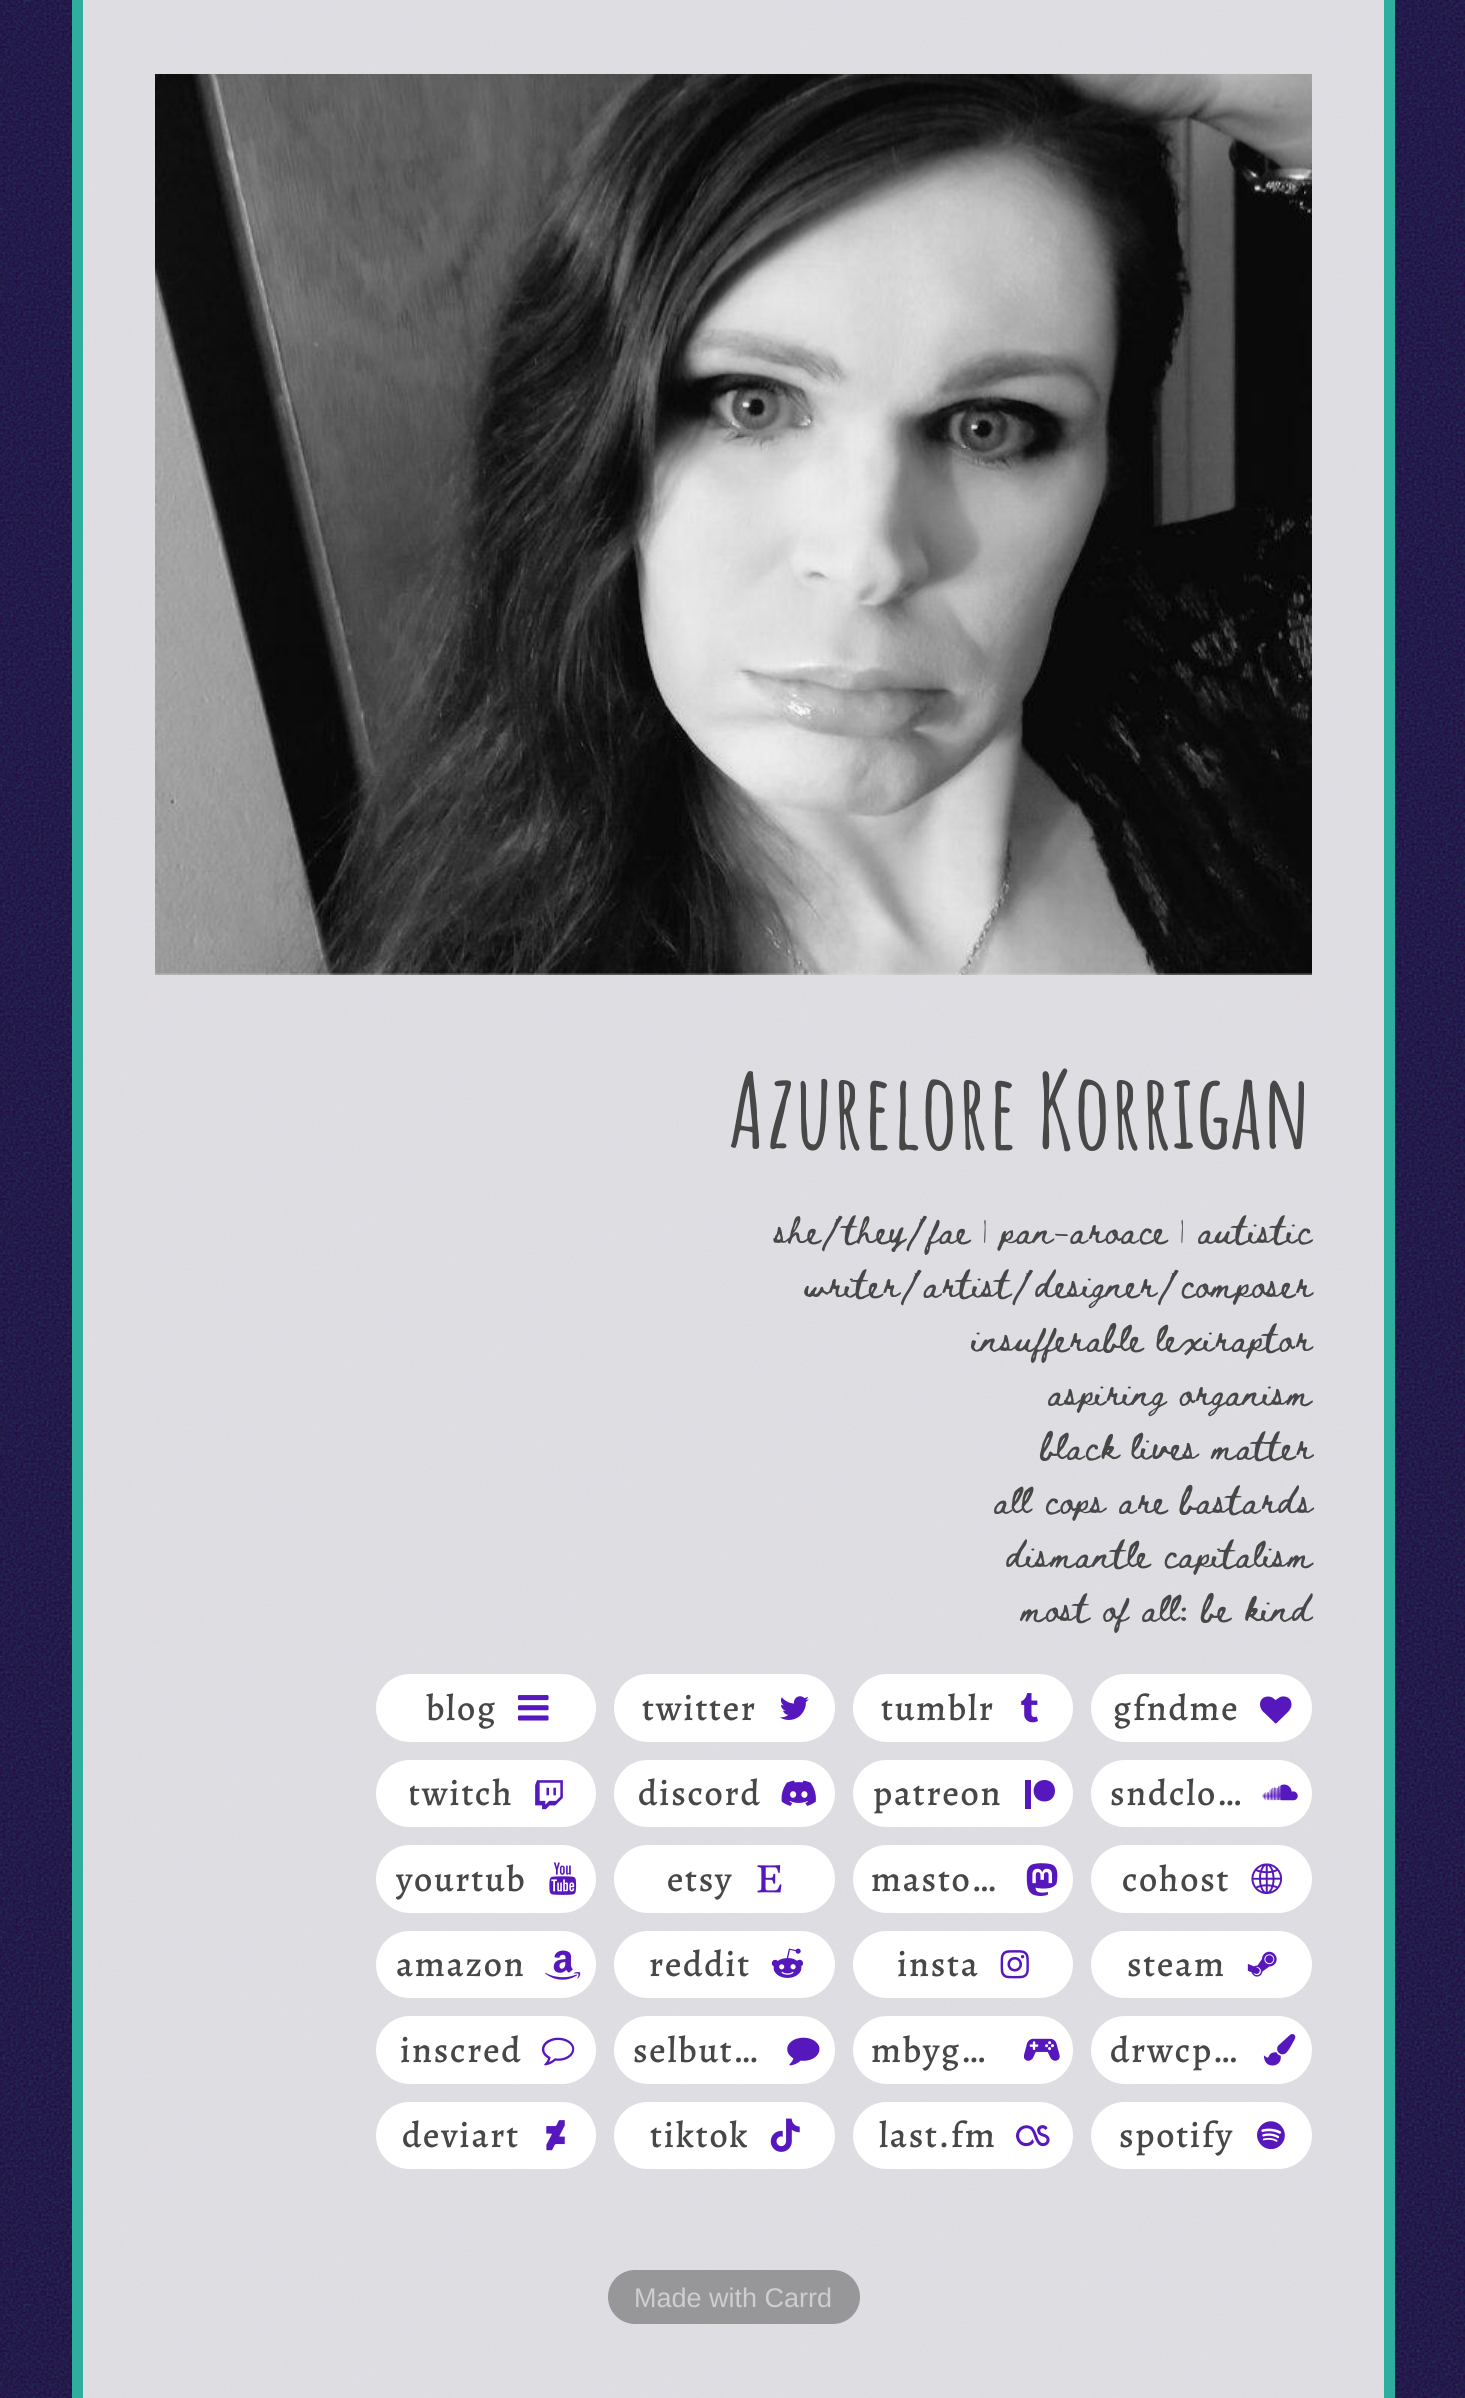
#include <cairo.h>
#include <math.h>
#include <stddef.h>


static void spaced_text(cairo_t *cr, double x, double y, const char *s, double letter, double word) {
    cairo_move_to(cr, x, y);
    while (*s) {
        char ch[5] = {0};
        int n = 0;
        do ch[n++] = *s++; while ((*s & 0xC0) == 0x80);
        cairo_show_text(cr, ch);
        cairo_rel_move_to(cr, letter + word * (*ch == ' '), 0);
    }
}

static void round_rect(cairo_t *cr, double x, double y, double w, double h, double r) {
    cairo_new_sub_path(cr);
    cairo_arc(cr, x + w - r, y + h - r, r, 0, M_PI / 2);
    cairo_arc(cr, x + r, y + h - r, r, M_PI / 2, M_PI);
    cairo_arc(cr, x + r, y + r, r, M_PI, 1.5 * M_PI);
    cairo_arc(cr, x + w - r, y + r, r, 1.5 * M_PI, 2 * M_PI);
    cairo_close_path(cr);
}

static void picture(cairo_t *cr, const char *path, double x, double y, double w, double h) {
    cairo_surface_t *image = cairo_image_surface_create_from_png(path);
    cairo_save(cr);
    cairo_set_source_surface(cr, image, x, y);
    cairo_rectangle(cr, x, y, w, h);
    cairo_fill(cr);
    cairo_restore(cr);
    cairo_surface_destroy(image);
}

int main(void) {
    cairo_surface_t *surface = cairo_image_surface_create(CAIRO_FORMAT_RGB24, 1465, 2398);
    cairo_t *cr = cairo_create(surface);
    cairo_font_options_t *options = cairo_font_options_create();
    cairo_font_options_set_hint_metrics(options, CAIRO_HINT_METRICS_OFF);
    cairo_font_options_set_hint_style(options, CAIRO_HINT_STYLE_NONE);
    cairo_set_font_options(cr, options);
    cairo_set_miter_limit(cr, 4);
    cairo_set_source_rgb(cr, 0.169, 0, 0.251);
    cairo_paint(cr);
    cairo_set_source_rgb(cr, 0.875, 0.855, 0.882);
    cairo_rectangle(cr, 83, 0, 1301, 2398);
    cairo_fill(cr);
    picture(cr, "img1.png", 0, 0, 1465, 2398);
    cairo_set_source_rgb(cr, 0.184, 0.678, 0.624);
    cairo_rectangle(cr, 1384, 0, 11, 2398);
    cairo_fill(cr);
    cairo_rectangle(cr, 72, 0, 11, 2398);
    cairo_fill(cr);
    picture(cr, "img2.png", 155, 74, 1157, 901);
    cairo_select_font_face(cr, "Amatic SC", CAIRO_FONT_SLANT_NORMAL, CAIRO_FONT_WEIGHT_BOLD);
    cairo_set_font_size(cr, 103.5);
    cairo_set_source_rgb(cr, 0.278, 0.278, 0.278);
    cairo_move_to(cr, 729, 1149);
    cairo_show_text(cr, "Azurelore Korrigan");
    cairo_select_font_face(cr, "Beth Ellen", CAIRO_FONT_SLANT_NORMAL, CAIRO_FONT_WEIGHT_NORMAL);
    cairo_set_font_size(cr, 27);
    spaced_text(cr, 775, 1243, "she/they/fae | pan-aroace | autistic", 0.8, 0);
    spaced_text(cr, 803, 1297, "writer/artist/designer/composer", 0.8, 0);
    spaced_text(cr, 972, 1351, "insufferable lexiraptor", 0.8, 0);
    spaced_text(cr, 1048, 1405, "aspiring organism", 0.8, 0);
    spaced_text(cr, 1041, 1459, "black lives matter", 0.8, 0);
    spaced_text(cr, 994, 1513, "all cops are bastards", 0.8, 0);
    spaced_text(cr, 1006, 1567, "dismantle capitalism", 0.8, 0);
    spaced_text(cr, 1021, 1621, "most of all: be kind", 0.8, 0);
    cairo_set_source_rgb(cr, 1, 1, 1);
    round_rect(cr, 376, 1674, 220, 68, 34);
    cairo_fill(cr);
    cairo_select_font_face(cr, "Alegreya Medium", CAIRO_FONT_SLANT_NORMAL, CAIRO_FONT_WEIGHT_NORMAL);
    cairo_set_font_size(cr, 36);
    cairo_set_source_rgb(cr, 0.278, 0.278, 0.278);
    spaced_text(cr, 426, 1720, "blog", 1.75, 0);
    picture(cr, "img3.png", 517, 1695, 32, 26);
    cairo_set_source_rgb(cr, 1, 1, 1);
    round_rect(cr, 614, 1674, 221, 68, 34);
    cairo_fill(cr);
    cairo_set_source_rgb(cr, 0.278, 0.278, 0.278);
    spaced_text(cr, 642, 1720, "twitter", 1.75, 0);
    picture(cr, "img4.png", 779, 1696, 30, 24);
    cairo_set_source_rgb(cr, 1, 1, 1);
    round_rect(cr, 853, 1674, 220, 68, 34);
    cairo_fill(cr);
    cairo_set_source_rgb(cr, 0.278, 0.278, 0.278);
    spaced_text(cr, 881, 1720, "tumblr", 1.75, 0);
    picture(cr, "img5.png", 1021, 1693, 17, 30);
    cairo_set_source_rgb(cr, 1, 1, 1);
    round_rect(cr, 1091, 1674, 221, 68, 34);
    cairo_fill(cr);
    cairo_set_source_rgb(cr, 0.278, 0.278, 0.278);
    spaced_text(cr, 1113, 1720, "gfndme", 1.75, 0);
    picture(cr, "img6.png", 1260, 1696, 32, 28);
    cairo_set_source_rgb(cr, 1, 1, 1);
    round_rect(cr, 376, 1760, 220, 67, 33.5);
    cairo_fill(cr);
    cairo_save(cr);
    cairo_rectangle(cr, 410, 1760, 103, 67);
    cairo_clip(cr);
    cairo_set_source_rgb(cr, 0.278, 0.278, 0.278);
    spaced_text(cr, 408, 1805, "twitch", 1.75, 0);
    cairo_restore(cr);
    picture(cr, "img7.png", 535, 1780, 28, 30);
    round_rect(cr, 614, 1760, 221, 67, 33.5);
    cairo_fill(cr);
    cairo_set_source_rgb(cr, 0.278, 0.278, 0.278);
    spaced_text(cr, 638, 1805, "discord", 1.75, 0);
    picture(cr, "img8.png", 781, 1780, 35, 26);
    cairo_set_source_rgb(cr, 1, 1, 1);
    round_rect(cr, 853, 1760, 220, 67, 33.5);
    cairo_fill(cr);
    cairo_set_source_rgb(cr, 0.278, 0.278, 0.278);
    spaced_text(cr, 873, 1805, "patreon", 1.75, 0);
    cairo_set_source_rgb(cr, 0.337, 0.09, 0.741);
    cairo_new_path(cr);
    cairo_move_to(cr, 1044.5, 1780);
    cairo_curve_to(cr, 1030, 1780, 1030, 1801.5, 1044.5, 1801.5);
    cairo_curve_to(cr, 1058.5, 1801.5, 1058.5, 1780, 1044.5, 1780);
    cairo_fill(cr);
    cairo_rectangle(cr, 1025, 1780, 6, 29);
    cairo_fill(cr);
    cairo_set_source_rgb(cr, 1, 1, 1);
    round_rect(cr, 1091, 1760, 221, 67, 33.5);
    cairo_fill(cr);
    cairo_set_source_rgb(cr, 0.278, 0.278, 0.278);
    spaced_text(cr, 1110, 1805, "sndclo…", 1.75, 0);
    picture(cr, "img9.png", 1262, 1784, 36, 17);
    cairo_set_source_rgb(cr, 1, 1, 1);
    round_rect(cr, 376, 1845, 220, 68, 34);
    cairo_fill(cr);
    cairo_save(cr);
    cairo_rectangle(cr, 396, 1845, 131, 68);
    cairo_clip(cr);
    cairo_set_source_rgb(cr, 0.278, 0.278, 0.278);
    spaced_text(cr, 396, 1891, "yourtub", 1.75, 0);
    cairo_restore(cr);
    picture(cr, "img10.png", 549, 1862, 28, 33);
    round_rect(cr, 614, 1845, 221, 68, 34);
    cairo_fill(cr);
    cairo_set_source_rgb(cr, 0.278, 0.278, 0.278);
    spaced_text(cr, 667, 1891, "etsy", 1.75, 0);
    picture(cr, "img11.png", 757, 1865, 25, 28);
    cairo_set_source_rgb(cr, 1, 1, 1);
    round_rect(cr, 853, 1845, 220, 68, 34);
    cairo_fill(cr);
    cairo_set_source_rgb(cr, 0.278, 0.278, 0.278);
    spaced_text(cr, 871, 1891, "masto…", 1.75, 0);
    picture(cr, "img12.png", 1026, 1863, 32, 33);
    cairo_set_source_rgb(cr, 1, 1, 1);
    round_rect(cr, 1091, 1845, 221, 68, 34);
    cairo_fill(cr);
    cairo_set_source_rgb(cr, 0.278, 0.278, 0.278);
    spaced_text(cr, 1122, 1891, "cohost", 1.75, 0);
    picture(cr, "img13.png", 1251, 1863, 32, 32);
    cairo_set_source_rgb(cr, 1, 1, 1);
    round_rect(cr, 376, 1931, 220, 67, 33.5);
    cairo_fill(cr);
    cairo_set_source_rgb(cr, 0.278, 0.278, 0.278);
    spaced_text(cr, 396, 1976, "amazon", 1.75, 0);
    picture(cr, "img14.png", 545, 1950, 36, 30);
    cairo_set_source_rgb(cr, 1, 1, 1);
    round_rect(cr, 614, 1931, 221, 67, 33.5);
    cairo_fill(cr);
    cairo_set_source_rgb(cr, 0.278, 0.278, 0.278);
    spaced_text(cr, 649, 1976, "reddit", 1.75, 0);
    picture(cr, "img15.png", 771, 1948, 33, 30);
    cairo_set_source_rgb(cr, 1, 1, 1);
    round_rect(cr, 853, 1931, 220, 67, 33.5);
    cairo_fill(cr);
    cairo_set_source_rgb(cr, 0.278, 0.278, 0.278);
    spaced_text(cr, 897, 1976, "insta", 1.75, 0);
    picture(cr, "img16.png", 1000, 1950, 29, 29);
    cairo_set_source_rgb(cr, 1, 1, 1);
    round_rect(cr, 1091, 1931, 221, 67, 33.5);
    cairo_fill(cr);
    cairo_set_source_rgb(cr, 0.278, 0.278, 0.278);
    spaced_text(cr, 1127, 1976, "steam", 1.75, 0);
    picture(cr, "img17.png", 1247, 1951, 30, 26);
    cairo_set_source_rgb(cr, 1, 1, 1);
    round_rect(cr, 376, 2016, 220, 68, 34);
    cairo_fill(cr);
    cairo_set_source_rgb(cr, 0.278, 0.278, 0.278);
    spaced_text(cr, 400, 2062, "inscred", 1.75, 0);
    picture(cr, "img18.png", 541, 2037, 34, 29);
    cairo_set_source_rgb(cr, 1, 1, 1);
    round_rect(cr, 614, 2016, 221, 68, 34);
    cairo_fill(cr);
    cairo_set_source_rgb(cr, 0.278, 0.278, 0.278);
    spaced_text(cr, 633, 2062, "selbut…", 1.75, 0);
    picture(cr, "img19.png", 787, 2037, 33, 29);
    cairo_set_source_rgb(cr, 1, 1, 1);
    round_rect(cr, 853, 2016, 220, 68, 34);
    cairo_fill(cr);
    cairo_set_source_rgb(cr, 0.278, 0.278, 0.278);
    spaced_text(cr, 871, 2062, "mbyg…", 1.75, 0);
    picture(cr, "img20.png", 1024, 2038, 36, 23);
    cairo_set_source_rgb(cr, 1, 1, 1);
    round_rect(cr, 1091, 2016, 221, 68, 34);
    cairo_fill(cr);
    cairo_set_source_rgb(cr, 0.278, 0.278, 0.278);
    spaced_text(cr, 1110, 2062, "drwcp…", 1.75, 0);
    picture(cr, "img21.png", 1263, 2034, 33, 32);
    cairo_set_source_rgb(cr, 1, 1, 1);
    round_rect(cr, 376, 2102, 220, 67, 33.5);
    cairo_fill(cr);
    cairo_set_source_rgb(cr, 0.278, 0.278, 0.278);
    spaced_text(cr, 402, 2147, "deviart", 1.75, 0);
    picture(cr, "img22.png", 546, 2120, 19, 31);
    cairo_set_source_rgb(cr, 1, 1, 1);
    round_rect(cr, 614, 2102, 221, 67, 33.5);
    cairo_fill(cr);
    cairo_set_source_rgb(cr, 0.278, 0.278, 0.278);
    spaced_text(cr, 650, 2147, "tiktok", 1.75, 0);
    picture(cr, "img23.png", 770, 2118, 30, 34);
    cairo_set_source_rgb(cr, 1, 1, 1);
    round_rect(cr, 853, 2102, 220, 67, 33.5);
    cairo_fill(cr);
    cairo_set_source_rgb(cr, 0.278, 0.278, 0.278);
    spaced_text(cr, 879, 2147, "last.fm", 1.75, 0);
    picture(cr, "img24.png", 1016, 2125, 34, 22);
    cairo_set_source_rgb(cr, 1, 1, 1);
    round_rect(cr, 1091, 2102, 221, 67, 33.5);
    cairo_fill(cr);
    cairo_set_source_rgb(cr, 0.278, 0.278, 0.278);
    spaced_text(cr, 1119, 2147, "spotify", 1.75, 0);
    picture(cr, "img25.png", 1257, 2121, 28, 29);
    cairo_set_source_rgba(cr, 0.314, 0.314, 0.314, 0.5);
    round_rect(cr, 608, 2270, 252, 54, 27);
    cairo_fill(cr);
    cairo_select_font_face(cr, "Liberation Sans", CAIRO_FONT_SLANT_NORMAL, CAIRO_FONT_WEIGHT_NORMAL);
    cairo_set_font_size(cr, 27);
    cairo_set_source_rgb(cr, 0.808, 0.808, 0.808);
    cairo_move_to(cr, 634, 2307);
    cairo_show_text(cr, "Made with Carrd");
    cairo_surface_write_to_png(surface, "page.png");
    cairo_font_options_destroy(options);
    cairo_destroy(cr);
    cairo_surface_destroy(surface);
    return 0;
}
